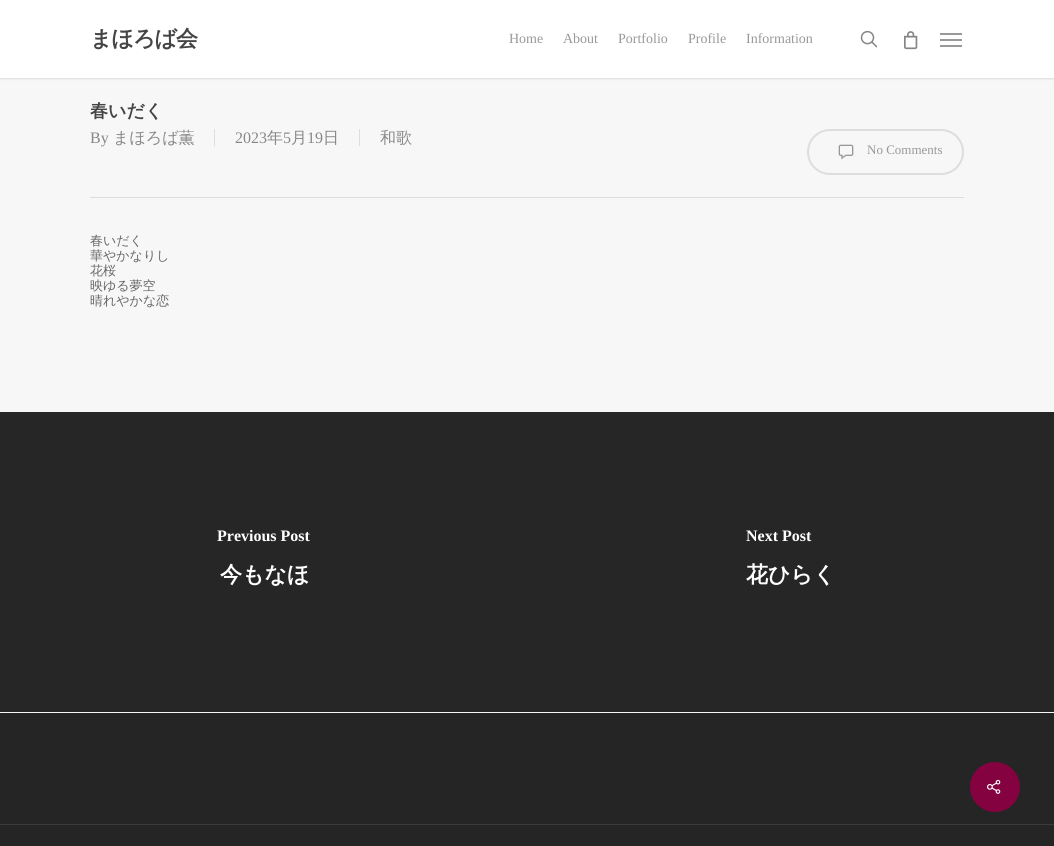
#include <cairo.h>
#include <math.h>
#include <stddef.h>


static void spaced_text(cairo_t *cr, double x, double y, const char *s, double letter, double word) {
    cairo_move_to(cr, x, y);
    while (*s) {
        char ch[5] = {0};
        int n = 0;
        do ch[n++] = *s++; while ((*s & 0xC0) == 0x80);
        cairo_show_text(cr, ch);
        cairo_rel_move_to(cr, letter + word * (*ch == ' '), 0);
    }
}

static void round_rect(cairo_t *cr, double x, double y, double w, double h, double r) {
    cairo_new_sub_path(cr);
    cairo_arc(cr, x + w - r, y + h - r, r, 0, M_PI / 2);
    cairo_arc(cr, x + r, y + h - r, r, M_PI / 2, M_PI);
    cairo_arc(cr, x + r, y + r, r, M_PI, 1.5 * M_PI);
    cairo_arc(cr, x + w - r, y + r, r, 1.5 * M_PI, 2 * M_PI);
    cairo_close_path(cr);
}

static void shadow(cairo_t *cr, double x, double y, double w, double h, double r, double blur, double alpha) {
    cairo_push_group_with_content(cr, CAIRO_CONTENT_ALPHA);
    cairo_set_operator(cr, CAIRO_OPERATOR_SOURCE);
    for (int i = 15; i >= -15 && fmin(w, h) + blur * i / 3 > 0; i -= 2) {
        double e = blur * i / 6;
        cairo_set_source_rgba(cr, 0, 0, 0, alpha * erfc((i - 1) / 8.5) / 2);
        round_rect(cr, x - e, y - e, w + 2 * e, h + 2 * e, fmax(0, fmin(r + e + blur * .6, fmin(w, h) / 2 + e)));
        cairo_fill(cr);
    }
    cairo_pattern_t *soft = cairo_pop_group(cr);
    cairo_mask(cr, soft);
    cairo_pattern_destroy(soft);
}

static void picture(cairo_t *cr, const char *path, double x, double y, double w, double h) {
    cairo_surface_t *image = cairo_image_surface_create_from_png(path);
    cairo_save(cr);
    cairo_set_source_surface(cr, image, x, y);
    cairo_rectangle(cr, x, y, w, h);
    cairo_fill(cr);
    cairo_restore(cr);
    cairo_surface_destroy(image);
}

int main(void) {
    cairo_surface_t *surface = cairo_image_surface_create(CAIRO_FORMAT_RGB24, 1054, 846);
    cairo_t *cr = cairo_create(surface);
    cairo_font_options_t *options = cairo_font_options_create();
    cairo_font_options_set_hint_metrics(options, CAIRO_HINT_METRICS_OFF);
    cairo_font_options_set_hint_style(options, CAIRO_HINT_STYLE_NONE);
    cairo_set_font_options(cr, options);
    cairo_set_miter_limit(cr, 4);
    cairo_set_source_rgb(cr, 0.965, 0.965, 0.965);
    cairo_paint(cr);
    cairo_set_source_rgb(cr, 0, 0, 0);
    shadow(cr, 0, 0, 1054, 78, 0, 1.5, 0.22);
    cairo_set_source_rgb(cr, 1, 1, 1);
    cairo_rectangle(cr, 0, 0, 1054, 78);
    cairo_fill(cr);
    cairo_select_font_face(cr, "WenQuanYi Zen Hei", CAIRO_FONT_SLANT_NORMAL, CAIRO_FONT_WEIGHT_BOLD);
    cairo_set_font_size(cr, 22);
    cairo_set_source_rgb(cr, 0.267, 0.267, 0.267);
    spaced_text(cr, 90, 46, "まほろば会", -1, 0);
    cairo_select_font_face(cr, "Liberation Serif", CAIRO_FONT_SLANT_NORMAL, CAIRO_FONT_WEIGHT_NORMAL);
    cairo_set_font_size(cr, 14);
    cairo_set_source_rgb(cr, 0.6, 0.6, 0.6);
    cairo_move_to(cr, 509, 43);
    cairo_show_text(cr, "Home");
    cairo_move_to(cr, 563, 43);
    cairo_show_text(cr, "About");
    cairo_move_to(cr, 618, 43);
    cairo_show_text(cr, "Portfolio");
    cairo_move_to(cr, 688, 43);
    cairo_show_text(cr, "Profile");
    cairo_move_to(cr, 746, 43);
    cairo_show_text(cr, "Information");
    picture(cr, "img1.png", 860, 30, 18, 18);
    picture(cr, "img2.png", 904, 31, 14, 19);
    cairo_rectangle(cr, 940, 33, 22, 2);
    cairo_fill(cr);
    cairo_rectangle(cr, 940, 45, 22, 2);
    cairo_fill(cr);
    cairo_rectangle(cr, 940, 39, 22, 2);
    cairo_fill(cr);
    cairo_set_source_rgb(cr, 0.867, 0.867, 0.867);
    cairo_rectangle(cr, 90, 197, 874, 1);
    cairo_fill(cr);
    cairo_select_font_face(cr, "WenQuanYi Zen Hei", CAIRO_FONT_SLANT_NORMAL, CAIRO_FONT_WEIGHT_BOLD);
    cairo_set_font_size(cr, 18);
    cairo_set_source_rgb(cr, 0.267, 0.267, 0.267);
    cairo_move_to(cr, 90, 117);
    cairo_show_text(cr, "春いだく");
    cairo_select_font_face(cr, "Liberation Serif", CAIRO_FONT_SLANT_NORMAL, CAIRO_FONT_WEIGHT_NORMAL);
    cairo_set_font_size(cr, 16);
    cairo_set_source_rgb(cr, 0.529, 0.529, 0.529);
    cairo_move_to(cr, 90, 143);
    cairo_show_text(cr, "By");
    cairo_select_font_face(cr, "WenQuanYi Zen Hei Medium", CAIRO_FONT_SLANT_NORMAL, CAIRO_FONT_WEIGHT_NORMAL);
    cairo_move_to(cr, 113, 143);
    cairo_show_text(cr, "まほろば薫");
    cairo_select_font_face(cr, "Liberation Serif", CAIRO_FONT_SLANT_NORMAL, CAIRO_FONT_WEIGHT_NORMAL);
    cairo_move_to(cr, 235, 143);
    cairo_show_text(cr, "2023");
    cairo_set_source_rgb(cr, 0.867, 0.867, 0.867);
    cairo_rectangle(cr, 214, 129, 1, 17);
    cairo_fill(cr);
    cairo_select_font_face(cr, "WenQuanYi Zen Hei Medium", CAIRO_FONT_SLANT_NORMAL, CAIRO_FONT_WEIGHT_NORMAL);
    cairo_set_source_rgb(cr, 0.529, 0.529, 0.529);
    cairo_move_to(cr, 267, 143);
    cairo_show_text(cr, "年");
    cairo_select_font_face(cr, "Liberation Serif", CAIRO_FONT_SLANT_NORMAL, CAIRO_FONT_WEIGHT_NORMAL);
    cairo_move_to(cr, 283, 143);
    cairo_show_text(cr, "5");
    cairo_select_font_face(cr, "WenQuanYi Zen Hei Medium", CAIRO_FONT_SLANT_NORMAL, CAIRO_FONT_WEIGHT_NORMAL);
    cairo_move_to(cr, 291, 143);
    cairo_show_text(cr, "月");
    cairo_select_font_face(cr, "Liberation Serif", CAIRO_FONT_SLANT_NORMAL, CAIRO_FONT_WEIGHT_NORMAL);
    cairo_move_to(cr, 307, 143);
    cairo_show_text(cr, "19");
    cairo_select_font_face(cr, "WenQuanYi Zen Hei Medium", CAIRO_FONT_SLANT_NORMAL, CAIRO_FONT_WEIGHT_NORMAL);
    cairo_move_to(cr, 323, 143);
    cairo_show_text(cr, "日");
    cairo_move_to(cr, 380, 143);
    cairo_show_text(cr, "和歌");
    cairo_set_source_rgb(cr, 0.867, 0.867, 0.867);
    cairo_rectangle(cr, 359, 129, 1, 17);
    cairo_fill(cr);
    round_rect(cr, 808, 130, 155, 44, 22);
    cairo_stroke(cr);
    picture(cr, "img3.png", 838, 144, 16, 16);
    cairo_select_font_face(cr, "Liberation Serif", CAIRO_FONT_SLANT_NORMAL, CAIRO_FONT_WEIGHT_NORMAL);
    cairo_set_font_size(cr, 13);
    cairo_set_source_rgb(cr, 0.6, 0.6, 0.6);
    cairo_move_to(cr, 867, 154);
    cairo_show_text(cr, "No Comments");
    cairo_select_font_face(cr, "WenQuanYi Zen Hei Medium", CAIRO_FONT_SLANT_NORMAL, CAIRO_FONT_WEIGHT_NORMAL);
    cairo_set_source_rgb(cr, 0.404, 0.404, 0.404);
    cairo_move_to(cr, 90, 245);
    cairo_show_text(cr, "春いだく");
    cairo_move_to(cr, 90, 260);
    cairo_show_text(cr, "華やかなりし");
    cairo_move_to(cr, 90, 275);
    cairo_show_text(cr, "花桜");
    cairo_move_to(cr, 90, 290);
    cairo_show_text(cr, "映ゆる夢空");
    cairo_move_to(cr, 90, 305);
    cairo_show_text(cr, "晴れやかな恋");
    cairo_set_source_rgb(cr, 0.149, 0.149, 0.149);
    cairo_rectangle(cr, 0, 412, 1054, 300);
    cairo_fill(cr);
    cairo_select_font_face(cr, "Liberation Serif", CAIRO_FONT_SLANT_NORMAL, CAIRO_FONT_WEIGHT_BOLD);
    cairo_set_font_size(cr, 16);
    cairo_set_source_rgb(cr, 1, 1, 1);
    cairo_move_to(cr, 217, 541);
    cairo_show_text(cr, "Previous Post");
    cairo_select_font_face(cr, "WenQuanYi Zen Hei", CAIRO_FONT_SLANT_NORMAL, CAIRO_FONT_WEIGHT_BOLD);
    cairo_set_font_size(cr, 22);
    cairo_move_to(cr, 220, 582);
    cairo_show_text(cr, "今もなほ");
    cairo_select_font_face(cr, "Liberation Serif", CAIRO_FONT_SLANT_NORMAL, CAIRO_FONT_WEIGHT_BOLD);
    cairo_set_font_size(cr, 16);
    cairo_move_to(cr, 746, 541);
    cairo_show_text(cr, "Next Post");
    cairo_select_font_face(cr, "WenQuanYi Zen Hei", CAIRO_FONT_SLANT_NORMAL, CAIRO_FONT_WEIGHT_BOLD);
    cairo_set_font_size(cr, 22);
    cairo_move_to(cr, 746, 582);
    cairo_show_text(cr, "花ひらく");
    cairo_set_source_rgb(cr, 0.145, 0.145, 0.145);
    cairo_rectangle(cr, 0, 713, 1054, 133);
    cairo_fill(cr);
    cairo_set_source_rgb(cr, 0.231, 0.231, 0.231);
    cairo_rectangle(cr, 0, 824, 1054, 1);
    cairo_fill(cr);
    cairo_set_source_rgb(cr, 0.518, 0.008, 0.247);
    cairo_arc(cr, 995, 787, 25, 0, 2 * M_PI);
    cairo_fill(cr);
    picture(cr, "img4.png", 987, 779, 14, 15);
    cairo_surface_write_to_png(surface, "page.png");
    cairo_font_options_destroy(options);
    cairo_destroy(cr);
    cairo_surface_destroy(surface);
    return 0;
}
